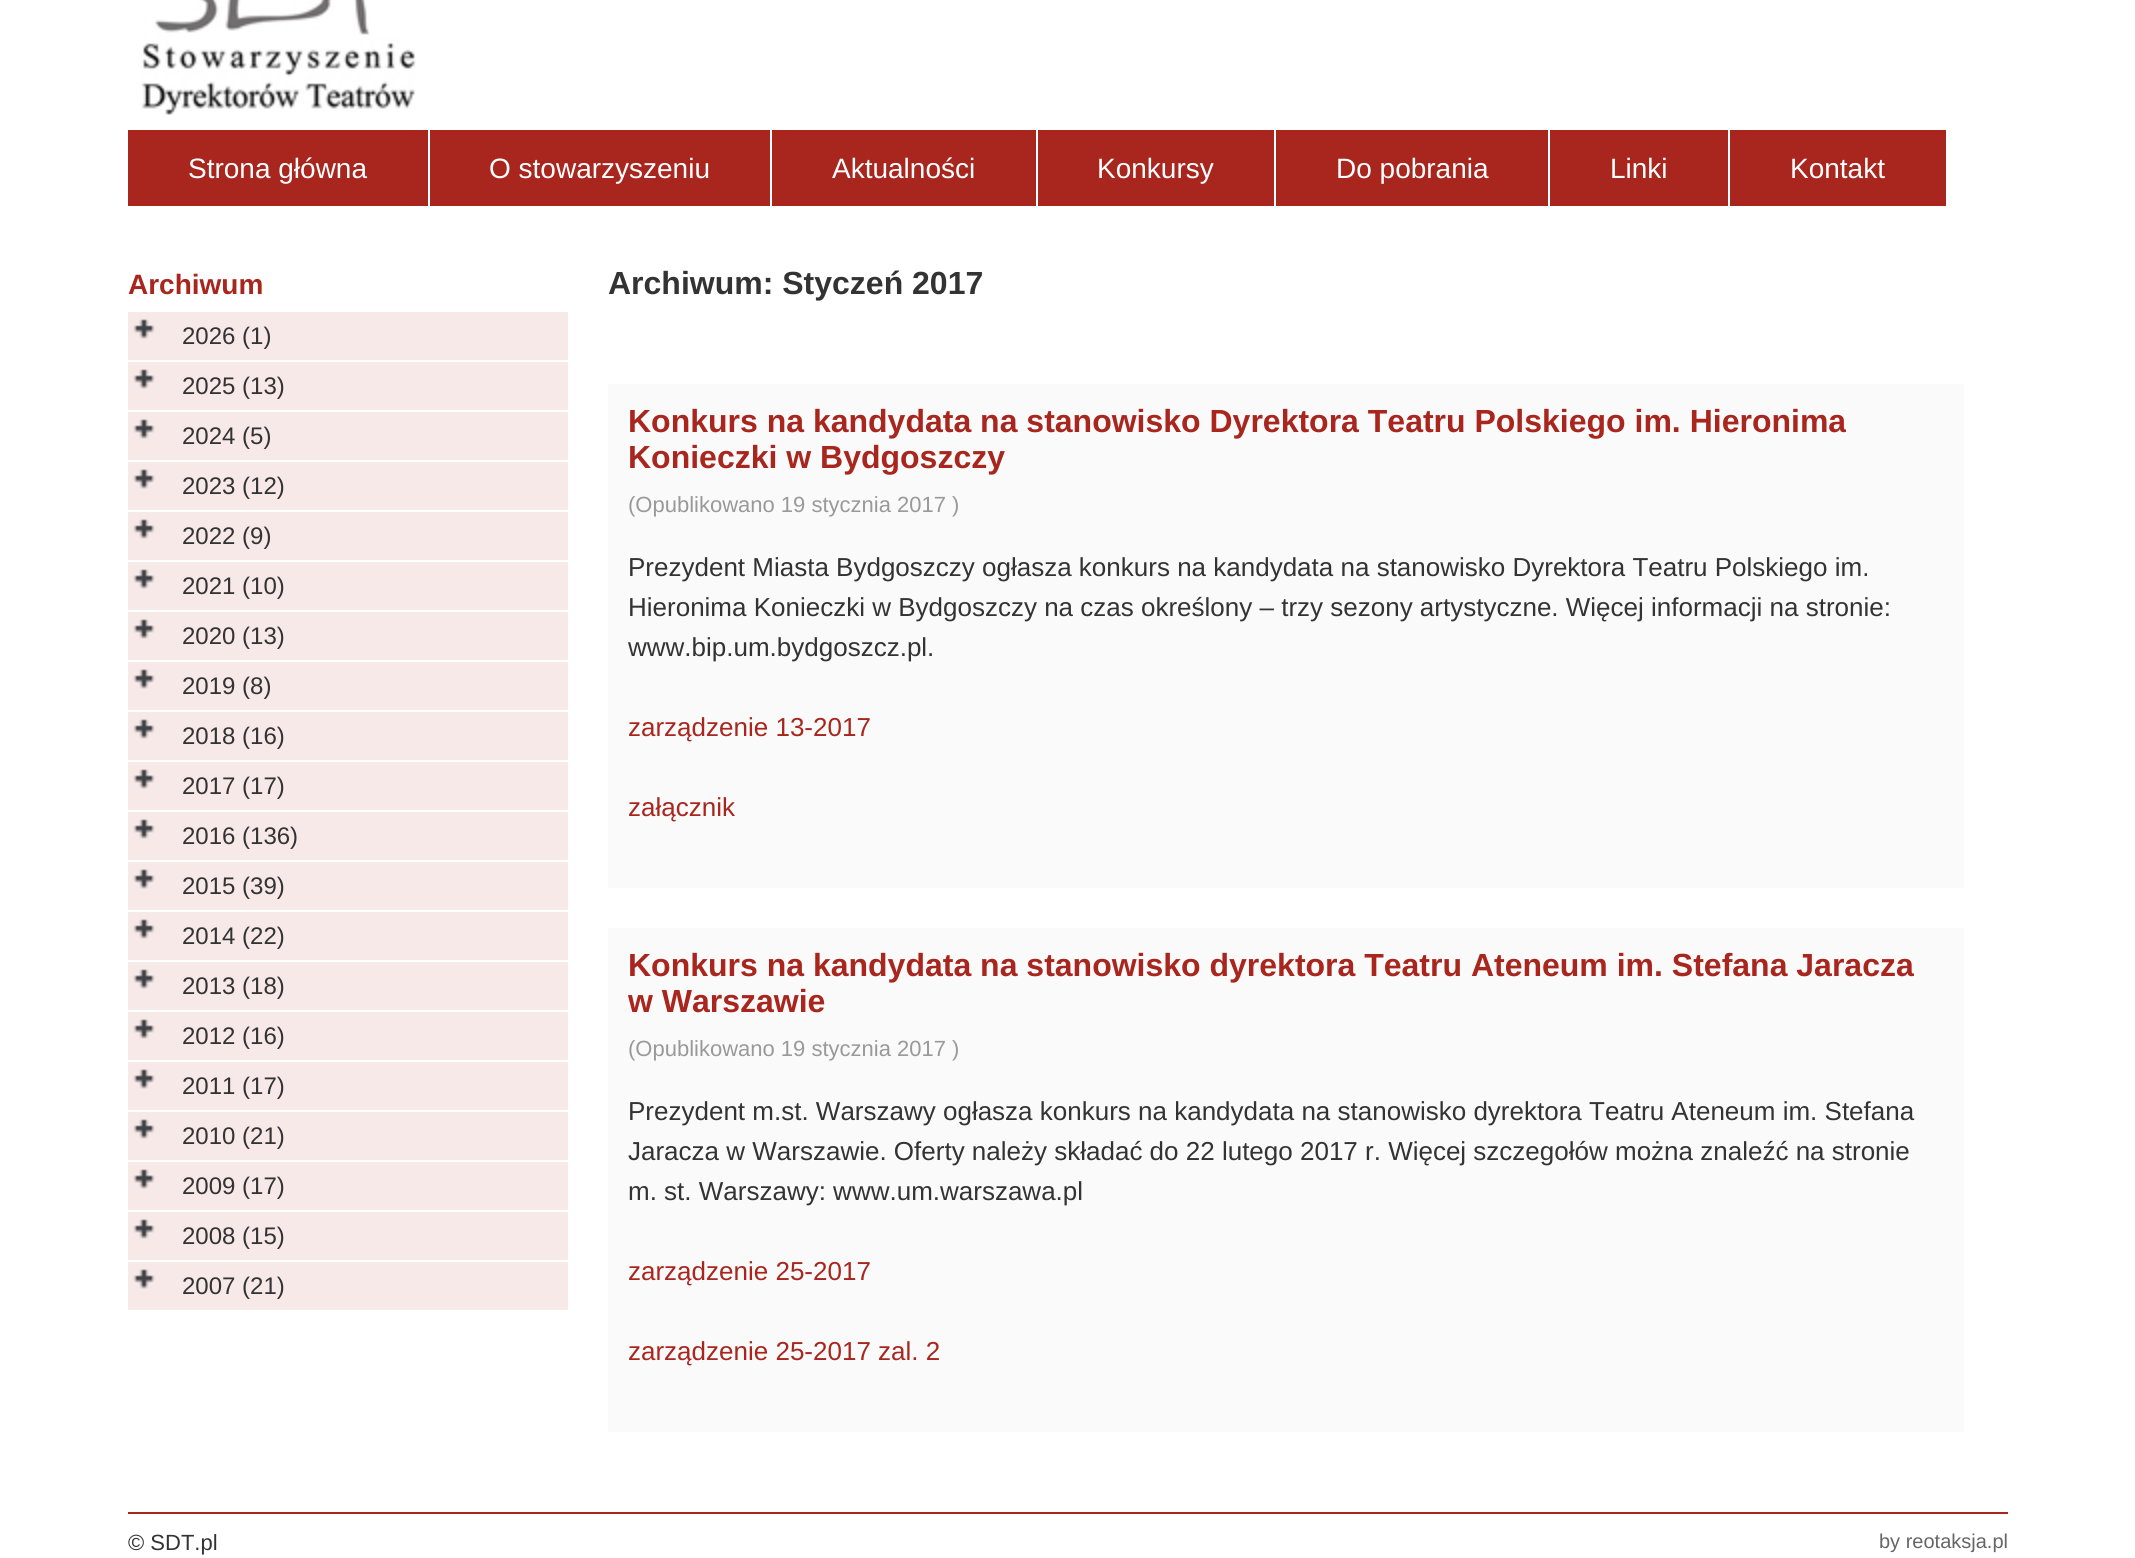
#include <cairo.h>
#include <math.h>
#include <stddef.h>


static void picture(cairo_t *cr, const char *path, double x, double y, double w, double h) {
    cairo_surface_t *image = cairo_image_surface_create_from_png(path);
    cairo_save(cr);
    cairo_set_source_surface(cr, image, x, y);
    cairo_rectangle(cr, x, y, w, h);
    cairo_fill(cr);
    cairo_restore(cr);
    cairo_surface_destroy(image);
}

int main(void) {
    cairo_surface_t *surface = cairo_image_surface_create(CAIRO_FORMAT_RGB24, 2135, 1558);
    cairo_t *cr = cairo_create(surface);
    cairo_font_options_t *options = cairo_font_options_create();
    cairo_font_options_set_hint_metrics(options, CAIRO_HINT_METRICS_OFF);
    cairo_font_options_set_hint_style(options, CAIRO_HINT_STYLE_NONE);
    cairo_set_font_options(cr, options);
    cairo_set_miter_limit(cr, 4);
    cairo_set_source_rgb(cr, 1, 1, 1);
    cairo_paint(cr);
    picture(cr, "img1.png", 141, 0, 275, 116);
    cairo_set_source_rgb(cr, 0.659, 0.149, 0.118);
    cairo_rectangle(cr, 128, 130, 300, 76);
    cairo_fill(cr);
    cairo_select_font_face(cr, "Liberation Sans", CAIRO_FONT_SLANT_NORMAL, CAIRO_FONT_WEIGHT_NORMAL);
    cairo_set_font_size(cr, 28);
    cairo_set_source_rgb(cr, 1, 1, 1);
    cairo_move_to(cr, 188, 178);
    cairo_show_text(cr, "Strona główna");
    cairo_set_source_rgb(cr, 0.659, 0.149, 0.118);
    cairo_rectangle(cr, 430, 130, 340, 76);
    cairo_fill(cr);
    cairo_set_source_rgb(cr, 1, 1, 1);
    cairo_move_to(cr, 489, 178);
    cairo_show_text(cr, "O stowarzyszeniu");
    cairo_set_source_rgb(cr, 0.659, 0.149, 0.118);
    cairo_rectangle(cr, 772, 130, 264, 76);
    cairo_fill(cr);
    cairo_set_source_rgb(cr, 1, 1, 1);
    cairo_move_to(cr, 832, 178);
    cairo_show_text(cr, "Aktualności");
    cairo_set_source_rgb(cr, 0.659, 0.149, 0.118);
    cairo_rectangle(cr, 1038, 130, 236, 76);
    cairo_fill(cr);
    cairo_set_source_rgb(cr, 1, 1, 1);
    cairo_move_to(cr, 1097, 178);
    cairo_show_text(cr, "Konkursy");
    cairo_set_source_rgb(cr, 0.659, 0.149, 0.118);
    cairo_rectangle(cr, 1276, 130, 272, 76);
    cairo_fill(cr);
    cairo_set_source_rgb(cr, 1, 1, 1);
    cairo_move_to(cr, 1336, 178);
    cairo_show_text(cr, "Do pobrania");
    cairo_set_source_rgb(cr, 0.659, 0.149, 0.118);
    cairo_rectangle(cr, 1550, 130, 178, 76);
    cairo_fill(cr);
    cairo_set_source_rgb(cr, 1, 1, 1);
    cairo_move_to(cr, 1610, 178);
    cairo_show_text(cr, "Linki");
    cairo_set_source_rgb(cr, 0.659, 0.149, 0.118);
    cairo_rectangle(cr, 1730, 130, 216, 76);
    cairo_fill(cr);
    cairo_set_source_rgb(cr, 1, 1, 1);
    cairo_move_to(cr, 1790, 178);
    cairo_show_text(cr, "Kontakt");
    cairo_select_font_face(cr, "Liberation Sans", CAIRO_FONT_SLANT_NORMAL, CAIRO_FONT_WEIGHT_BOLD);
    cairo_set_source_rgb(cr, 0.659, 0.149, 0.118);
    cairo_move_to(cr, 128, 294);
    cairo_show_text(cr, "Archiwum");
    cairo_set_source_rgb(cr, 0.965, 0.914, 0.91);
    cairo_rectangle(cr, 128, 312, 440, 48);
    cairo_fill(cr);
    picture(cr, "img2.png", 133, 319, 22, 20);
    cairo_select_font_face(cr, "Liberation Sans", CAIRO_FONT_SLANT_NORMAL, CAIRO_FONT_WEIGHT_NORMAL);
    cairo_set_font_size(cr, 24);
    cairo_set_source_rgb(cr, 0.2, 0.2, 0.2);
    cairo_move_to(cr, 182, 344);
    cairo_show_text(cr, "2026 (1)");
    cairo_set_source_rgb(cr, 0.965, 0.914, 0.91);
    cairo_rectangle(cr, 128, 362, 440, 48);
    cairo_fill(cr);
    picture(cr, "img2.png", 133, 369, 22, 20);
    cairo_set_source_rgb(cr, 0.2, 0.2, 0.2);
    cairo_move_to(cr, 182, 394);
    cairo_show_text(cr, "2025 (13)");
    cairo_set_source_rgb(cr, 0.965, 0.914, 0.91);
    cairo_rectangle(cr, 128, 412, 440, 48);
    cairo_fill(cr);
    picture(cr, "img2.png", 133, 419, 22, 20);
    cairo_set_source_rgb(cr, 0.2, 0.2, 0.2);
    cairo_move_to(cr, 182, 444);
    cairo_show_text(cr, "2024 (5)");
    cairo_set_source_rgb(cr, 0.965, 0.914, 0.91);
    cairo_rectangle(cr, 128, 462, 440, 48);
    cairo_fill(cr);
    picture(cr, "img2.png", 133, 469, 22, 20);
    cairo_set_source_rgb(cr, 0.2, 0.2, 0.2);
    cairo_move_to(cr, 182, 494);
    cairo_show_text(cr, "2023 (12)");
    cairo_set_source_rgb(cr, 0.965, 0.914, 0.91);
    cairo_rectangle(cr, 128, 512, 440, 48);
    cairo_fill(cr);
    picture(cr, "img2.png", 133, 519, 22, 20);
    cairo_set_source_rgb(cr, 0.2, 0.2, 0.2);
    cairo_move_to(cr, 182, 544);
    cairo_show_text(cr, "2022 (9)");
    cairo_set_source_rgb(cr, 0.965, 0.914, 0.91);
    cairo_rectangle(cr, 128, 562, 440, 48);
    cairo_fill(cr);
    picture(cr, "img2.png", 133, 569, 22, 20);
    cairo_set_source_rgb(cr, 0.2, 0.2, 0.2);
    cairo_move_to(cr, 182, 594);
    cairo_show_text(cr, "2021 (10)");
    cairo_set_source_rgb(cr, 0.965, 0.914, 0.91);
    cairo_rectangle(cr, 128, 612, 440, 48);
    cairo_fill(cr);
    picture(cr, "img2.png", 133, 619, 22, 20);
    cairo_set_source_rgb(cr, 0.2, 0.2, 0.2);
    cairo_move_to(cr, 182, 644);
    cairo_show_text(cr, "2020 (13)");
    cairo_set_source_rgb(cr, 0.965, 0.914, 0.91);
    cairo_rectangle(cr, 128, 662, 440, 48);
    cairo_fill(cr);
    picture(cr, "img2.png", 133, 669, 22, 20);
    cairo_set_source_rgb(cr, 0.2, 0.2, 0.2);
    cairo_move_to(cr, 182, 694);
    cairo_show_text(cr, "2019 (8)");
    cairo_set_source_rgb(cr, 0.965, 0.914, 0.91);
    cairo_rectangle(cr, 128, 712, 440, 48);
    cairo_fill(cr);
    picture(cr, "img2.png", 133, 719, 22, 20);
    cairo_set_source_rgb(cr, 0.2, 0.2, 0.2);
    cairo_move_to(cr, 182, 744);
    cairo_show_text(cr, "2018 (16)");
    cairo_set_source_rgb(cr, 0.965, 0.914, 0.91);
    cairo_rectangle(cr, 128, 762, 440, 48);
    cairo_fill(cr);
    picture(cr, "img2.png", 133, 769, 22, 20);
    cairo_set_source_rgb(cr, 0.2, 0.2, 0.2);
    cairo_move_to(cr, 182, 794);
    cairo_show_text(cr, "2017 (17)");
    cairo_set_source_rgb(cr, 0.965, 0.914, 0.91);
    cairo_rectangle(cr, 128, 812, 440, 48);
    cairo_fill(cr);
    picture(cr, "img2.png", 133, 819, 22, 20);
    cairo_set_source_rgb(cr, 0.2, 0.2, 0.2);
    cairo_move_to(cr, 182, 844);
    cairo_show_text(cr, "2016 (136)");
    cairo_set_source_rgb(cr, 0.965, 0.914, 0.91);
    cairo_rectangle(cr, 128, 862, 440, 48);
    cairo_fill(cr);
    picture(cr, "img2.png", 133, 869, 22, 20);
    cairo_set_source_rgb(cr, 0.2, 0.2, 0.2);
    cairo_move_to(cr, 182, 894);
    cairo_show_text(cr, "2015 (39)");
    cairo_set_source_rgb(cr, 0.965, 0.914, 0.91);
    cairo_rectangle(cr, 128, 912, 440, 48);
    cairo_fill(cr);
    picture(cr, "img2.png", 133, 919, 22, 20);
    cairo_set_source_rgb(cr, 0.2, 0.2, 0.2);
    cairo_move_to(cr, 182, 944);
    cairo_show_text(cr, "2014 (22)");
    cairo_set_source_rgb(cr, 0.965, 0.914, 0.91);
    cairo_rectangle(cr, 128, 962, 440, 48);
    cairo_fill(cr);
    picture(cr, "img2.png", 133, 969, 22, 20);
    cairo_set_source_rgb(cr, 0.2, 0.2, 0.2);
    cairo_move_to(cr, 182, 994);
    cairo_show_text(cr, "2013 (18)");
    cairo_set_source_rgb(cr, 0.965, 0.914, 0.91);
    cairo_rectangle(cr, 128, 1012, 440, 48);
    cairo_fill(cr);
    picture(cr, "img2.png", 133, 1019, 22, 20);
    cairo_set_source_rgb(cr, 0.2, 0.2, 0.2);
    cairo_move_to(cr, 182, 1044);
    cairo_show_text(cr, "2012 (16)");
    cairo_set_source_rgb(cr, 0.965, 0.914, 0.91);
    cairo_rectangle(cr, 128, 1062, 440, 48);
    cairo_fill(cr);
    picture(cr, "img2.png", 133, 1069, 22, 20);
    cairo_set_source_rgb(cr, 0.2, 0.2, 0.2);
    cairo_move_to(cr, 182, 1094);
    cairo_show_text(cr, "2011 (17)");
    cairo_set_source_rgb(cr, 0.965, 0.914, 0.91);
    cairo_rectangle(cr, 128, 1112, 440, 48);
    cairo_fill(cr);
    picture(cr, "img2.png", 133, 1119, 22, 20);
    cairo_set_source_rgb(cr, 0.2, 0.2, 0.2);
    cairo_move_to(cr, 182, 1144);
    cairo_show_text(cr, "2010 (21)");
    cairo_set_source_rgb(cr, 0.965, 0.914, 0.91);
    cairo_rectangle(cr, 128, 1162, 440, 48);
    cairo_fill(cr);
    picture(cr, "img2.png", 133, 1169, 22, 20);
    cairo_set_source_rgb(cr, 0.2, 0.2, 0.2);
    cairo_move_to(cr, 182, 1194);
    cairo_show_text(cr, "2009 (17)");
    cairo_set_source_rgb(cr, 0.965, 0.914, 0.91);
    cairo_rectangle(cr, 128, 1212, 440, 48);
    cairo_fill(cr);
    picture(cr, "img2.png", 133, 1219, 22, 20);
    cairo_set_source_rgb(cr, 0.2, 0.2, 0.2);
    cairo_move_to(cr, 182, 1244);
    cairo_show_text(cr, "2008 (15)");
    cairo_set_source_rgb(cr, 0.965, 0.914, 0.91);
    cairo_rectangle(cr, 128, 1262, 440, 48);
    cairo_fill(cr);
    picture(cr, "img2.png", 133, 1269, 22, 20);
    cairo_set_source_rgb(cr, 0.2, 0.2, 0.2);
    cairo_move_to(cr, 182, 1294);
    cairo_show_text(cr, "2007 (21)");
    cairo_select_font_face(cr, "Liberation Sans", CAIRO_FONT_SLANT_NORMAL, CAIRO_FONT_WEIGHT_BOLD);
    cairo_set_font_size(cr, 32);
    cairo_move_to(cr, 608, 294);
    cairo_show_text(cr, "Archiwum: Styczeń 2017");
    cairo_set_source_rgb(cr, 0.98, 0.98, 0.98);
    cairo_rectangle(cr, 608, 384, 1356, 504);
    cairo_fill(cr);
    cairo_set_source_rgb(cr, 0.659, 0.149, 0.118);
    cairo_move_to(cr, 628, 432);
    cairo_show_text(cr, "Konkurs na kandydata na stanowisko Dyrektora Teatru Polskiego im. Hieronima");
    cairo_move_to(cr, 628, 468);
    cairo_show_text(cr, "Konieczki w Bydgoszczy");
    cairo_select_font_face(cr, "Liberation Sans", CAIRO_FONT_SLANT_NORMAL, CAIRO_FONT_WEIGHT_NORMAL);
    cairo_set_font_size(cr, 22);
    cairo_set_source_rgb(cr, 0.6, 0.6, 0.6);
    cairo_move_to(cr, 628, 512);
    cairo_show_text(cr, "(Opublikowano 19 stycznia 2017 )");
    cairo_set_font_size(cr, 26);
    cairo_set_source_rgb(cr, 0.2, 0.2, 0.2);
    cairo_move_to(cr, 628, 576);
    cairo_show_text(cr, "Prezydent Miasta Bydgoszczy ogłasza konkurs na kandydata na stanowisko Dyrektora Teatru Polskiego im.");
    cairo_move_to(cr, 628, 616);
    cairo_show_text(cr, "Hieronima Konieczki w Bydgoszczy na czas określony – trzy sezony artystyczne. Więcej informacji na stronie:");
    cairo_move_to(cr, 628, 656);
    cairo_show_text(cr, "www.bip.um.bydgoszcz.pl.");
    cairo_set_source_rgb(cr, 0.659, 0.149, 0.118);
    cairo_move_to(cr, 628, 736);
    cairo_show_text(cr, "zarządzenie 13-2017");
    cairo_move_to(cr, 628, 816);
    cairo_show_text(cr, "załącznik");
    cairo_set_source_rgb(cr, 0.98, 0.98, 0.98);
    cairo_rectangle(cr, 608, 928, 1356, 504);
    cairo_fill(cr);
    cairo_select_font_face(cr, "Liberation Sans", CAIRO_FONT_SLANT_NORMAL, CAIRO_FONT_WEIGHT_BOLD);
    cairo_set_font_size(cr, 32);
    cairo_set_source_rgb(cr, 0.659, 0.149, 0.118);
    cairo_move_to(cr, 628, 976);
    cairo_show_text(cr, "Konkurs na kandydata na stanowisko dyrektora Teatru Ateneum im. Stefana Jaracza");
    cairo_move_to(cr, 628, 1012);
    cairo_show_text(cr, "w Warszawie");
    cairo_select_font_face(cr, "Liberation Sans", CAIRO_FONT_SLANT_NORMAL, CAIRO_FONT_WEIGHT_NORMAL);
    cairo_set_font_size(cr, 22);
    cairo_set_source_rgb(cr, 0.6, 0.6, 0.6);
    cairo_move_to(cr, 628, 1056);
    cairo_show_text(cr, "(Opublikowano 19 stycznia 2017 )");
    cairo_set_font_size(cr, 26);
    cairo_set_source_rgb(cr, 0.2, 0.2, 0.2);
    cairo_move_to(cr, 628, 1120);
    cairo_show_text(cr, "Prezydent m.st. Warszawy ogłasza konkurs na kandydata na stanowisko dyrektora Teatru Ateneum im. Stefana");
    cairo_move_to(cr, 628, 1160);
    cairo_show_text(cr, "Jaracza w Warszawie. Oferty należy składać do 22 lutego 2017 r. Więcej szczegołów można znaleźć na stronie");
    cairo_move_to(cr, 628, 1200);
    cairo_show_text(cr, "m. st. Warszawy: www.um.warszawa.pl");
    cairo_set_source_rgb(cr, 0.659, 0.149, 0.118);
    cairo_move_to(cr, 628, 1280);
    cairo_show_text(cr, "zarządzenie 25-2017");
    cairo_move_to(cr, 628, 1360);
    cairo_show_text(cr, "zarządzenie 25-2017 zal. 2");
    cairo_rectangle(cr, 128, 1512, 1880, 2);
    cairo_fill(cr);
    cairo_set_font_size(cr, 22);
    cairo_set_source_rgb(cr, 0.2, 0.2, 0.2);
    cairo_move_to(cr, 128, 1550);
    cairo_show_text(cr, "© SDT.pl");
    cairo_set_font_size(cr, 20);
    cairo_set_source_rgb(cr, 0.4, 0.4, 0.4);
    cairo_move_to(cr, 1879, 1548);
    cairo_show_text(cr, "by reotaksja.pl");
    cairo_surface_write_to_png(surface, "page.png");
    cairo_font_options_destroy(options);
    cairo_destroy(cr);
    cairo_surface_destroy(surface);
    return 0;
}
